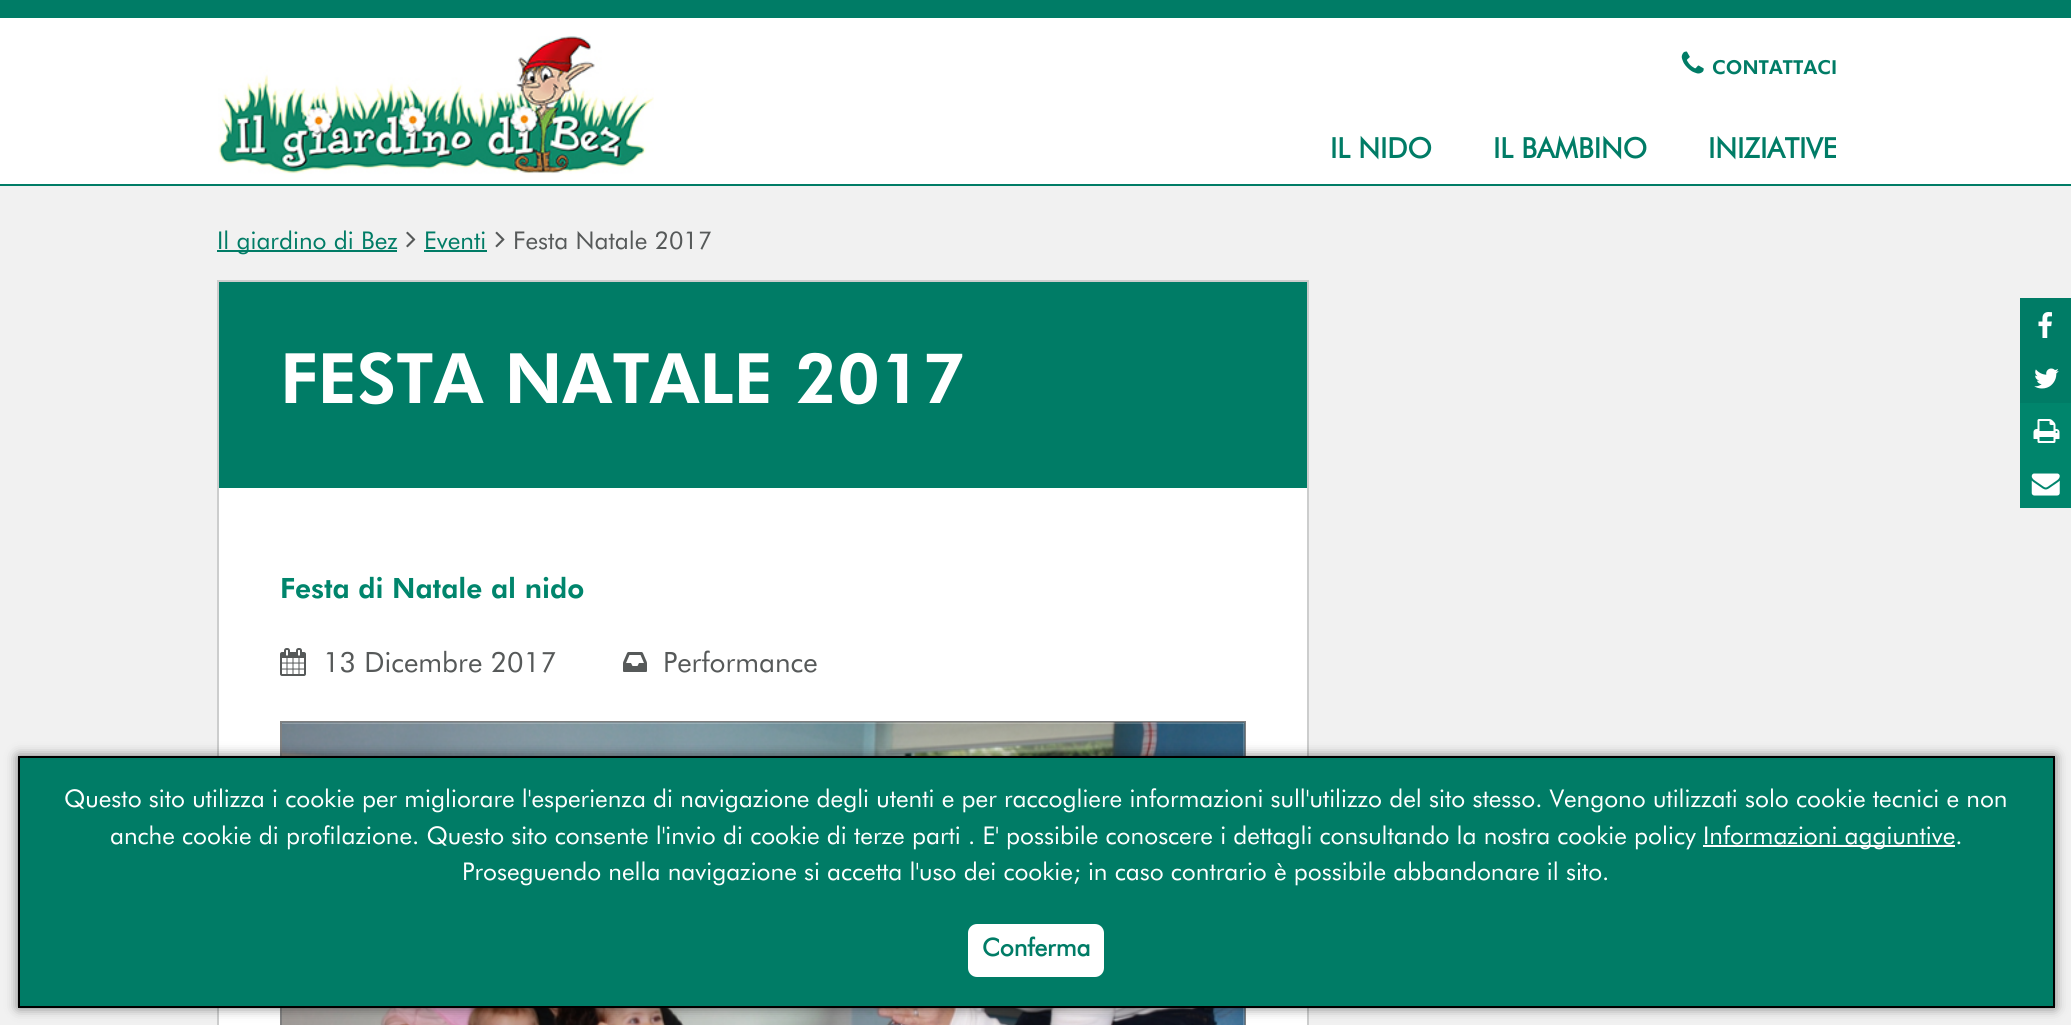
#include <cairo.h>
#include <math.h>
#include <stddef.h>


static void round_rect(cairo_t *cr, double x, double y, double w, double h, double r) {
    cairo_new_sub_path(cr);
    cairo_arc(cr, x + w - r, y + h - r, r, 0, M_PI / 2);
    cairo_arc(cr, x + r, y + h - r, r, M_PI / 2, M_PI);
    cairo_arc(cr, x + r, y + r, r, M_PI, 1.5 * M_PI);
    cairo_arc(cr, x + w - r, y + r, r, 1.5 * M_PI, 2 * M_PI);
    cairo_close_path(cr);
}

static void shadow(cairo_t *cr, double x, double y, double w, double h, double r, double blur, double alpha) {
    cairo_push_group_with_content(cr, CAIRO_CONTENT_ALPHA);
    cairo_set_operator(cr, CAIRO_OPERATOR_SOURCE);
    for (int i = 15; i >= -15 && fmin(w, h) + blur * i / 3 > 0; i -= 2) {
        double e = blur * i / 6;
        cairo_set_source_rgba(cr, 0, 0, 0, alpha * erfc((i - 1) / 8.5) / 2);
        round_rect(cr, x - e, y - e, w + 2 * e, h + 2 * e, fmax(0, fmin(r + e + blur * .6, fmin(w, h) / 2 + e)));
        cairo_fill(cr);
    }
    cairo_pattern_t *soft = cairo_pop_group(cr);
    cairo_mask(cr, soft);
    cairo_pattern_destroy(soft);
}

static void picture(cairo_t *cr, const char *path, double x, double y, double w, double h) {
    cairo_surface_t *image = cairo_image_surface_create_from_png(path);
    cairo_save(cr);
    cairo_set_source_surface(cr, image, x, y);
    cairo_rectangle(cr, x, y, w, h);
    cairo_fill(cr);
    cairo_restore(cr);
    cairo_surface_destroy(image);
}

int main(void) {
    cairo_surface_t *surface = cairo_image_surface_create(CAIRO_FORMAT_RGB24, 2071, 1025);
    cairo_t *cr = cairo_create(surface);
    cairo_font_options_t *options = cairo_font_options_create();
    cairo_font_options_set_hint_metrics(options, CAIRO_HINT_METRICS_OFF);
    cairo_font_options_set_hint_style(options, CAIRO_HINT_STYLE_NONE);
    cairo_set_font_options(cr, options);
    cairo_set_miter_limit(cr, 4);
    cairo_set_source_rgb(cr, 1, 1, 1);
    cairo_paint(cr);
    cairo_set_source_rgb(cr, 0, 0.486, 0.4);
    cairo_rectangle(cr, 0, 0, 2071, 18);
    cairo_fill(cr);
    cairo_rectangle(cr, 0, 184, 2071, 2);
    cairo_fill(cr);
    picture(cr, "img1.png", 218, 36, 436, 138);
    picture(cr, "img2.png", 1681, 51, 23, 23);
    cairo_select_font_face(cr, "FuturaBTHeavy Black", CAIRO_FONT_SLANT_NORMAL, CAIRO_FONT_WEIGHT_NORMAL);
    cairo_set_font_size(cr, 19.25);
    cairo_move_to(cr, 1712, 74);
    cairo_show_text(cr, "CONTATTACI");
    cairo_select_font_face(cr, "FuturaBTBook", CAIRO_FONT_SLANT_NORMAL, CAIRO_FONT_WEIGHT_BOLD);
    cairo_set_font_size(cr, 28);
    cairo_move_to(cr, 1330, 158);
    cairo_show_text(cr, "IL NIDO");
    cairo_move_to(cr, 1493, 158);
    cairo_show_text(cr, "IL BAMBINO");
    cairo_move_to(cr, 1708, 158);
    cairo_show_text(cr, "INIZIATIVE");
    cairo_set_source_rgb(cr, 0.945, 0.945, 0.945);
    cairo_rectangle(cr, 0, 186, 2071, 839);
    cairo_fill(cr);
    cairo_set_source_rgb(cr, 0, 0.486, 0.4);
    cairo_rectangle(cr, 217, 250, 180, 2);
    cairo_fill(cr);
    cairo_select_font_face(cr, "FuturaBTBook", CAIRO_FONT_SLANT_NORMAL, CAIRO_FONT_WEIGHT_NORMAL);
    cairo_set_font_size(cr, 24.5);
    cairo_move_to(cr, 217, 249);
    cairo_show_text(cr, "Il giardino di Bez");
    picture(cr, "img3.png", 406, 231, 10, 17);
    cairo_move_to(cr, 424, 249);
    cairo_show_text(cr, "Eventi");
    cairo_rectangle(cr, 424, 250, 63, 2);
    cairo_fill(cr);
    picture(cr, "img4.png", 495, 231, 10, 17);
    cairo_set_source_rgb(cr, 0.337, 0.349, 0.349);
    cairo_move_to(cr, 513, 249);
    cairo_show_text(cr, "Festa Natale 2017");
    cairo_set_source_rgb(cr, 1, 1, 1);
    cairo_rectangle(cr, 219, 488, 1088, 537);
    cairo_fill(cr);
    cairo_rectangle(cr, 218, 281, 1090, 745);
    cairo_set_source_rgb(cr, 0.8, 0.804, 0.804);
    cairo_stroke(cr);
    cairo_set_source_rgb(cr, 0, 0.486, 0.4);
    cairo_rectangle(cr, 219, 282, 1088, 206);
    cairo_fill(cr);
    cairo_select_font_face(cr, "FuturaBTHeavy Black", CAIRO_FONT_SLANT_NORMAL, CAIRO_FONT_WEIGHT_NORMAL);
    cairo_set_font_size(cr, 69.5);
    cairo_set_source_rgb(cr, 1, 1, 1);
    cairo_move_to(cr, 280, 403);
    cairo_show_text(cr, "FESTA NATALE 2017");
    cairo_set_font_size(cr, 28);
    cairo_set_source_rgb(cr, 0, 0.522, 0.424);
    cairo_move_to(cr, 280, 598);
    cairo_show_text(cr, "Festa di Natale al nido");
    picture(cr, "img5.png", 280, 648, 26, 28);
    cairo_select_font_face(cr, "FuturaBTBook", CAIRO_FONT_SLANT_NORMAL, CAIRO_FONT_WEIGHT_NORMAL);
    cairo_set_source_rgb(cr, 0.337, 0.349, 0.349);
    cairo_move_to(cr, 323, 672);
    cairo_show_text(cr, "13 Dicembre 2017");
    picture(cr, "img6.png", 623, 652, 24, 20);
    cairo_move_to(cr, 663, 672);
    cairo_show_text(cr, "Performance");
    cairo_rectangle(cr, 281, 722, 964, 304);
    cairo_set_source_rgb(cr, 0.502, 0.502, 0.502);
    cairo_stroke(cr);
    picture(cr, "img7.png", 282, 722, 963, 303);
    cairo_set_source_rgb(cr, 0, 0.486, 0.4);
    cairo_rectangle(cr, 2020, 298, 51, 105);
    cairo_fill(cr);
    picture(cr, "img8.png", 2038, 312, 14, 26);
    picture(cr, "img9.png", 2034, 368, 25, 21);
    cairo_set_source_rgb(cr, 0, 0.522, 0.424);
    cairo_rectangle(cr, 2020, 403, 51, 105);
    cairo_fill(cr);
    picture(cr, "img10.png", 2033, 419, 27, 24);
    picture(cr, "img11.png", 2031, 473, 29, 23);
    cairo_set_source_rgb(cr, 0, 0, 0);
    shadow(cr, 18, 756, 2037, 252, 0, 6, 0.5);
    cairo_set_source_rgb(cr, 0, 0.486, 0.4);
    cairo_rectangle(cr, 19, 757, 2035, 250);
    cairo_fill_preserve(cr);
    cairo_set_source_rgb(cr, 0, 0, 0);
    cairo_stroke(cr);
    cairo_set_font_size(cr, 24.5);
    cairo_set_source_rgb(cr, 1, 1, 1);
    cairo_move_to(cr, 64, 807);
    cairo_show_text(cr, "Questo sito utilizza i cookie per migliorare l'esperienza di navigazione degli utenti e per raccogliere informazioni sull'utilizzo del sito stesso. Vengono utilizzati solo cookie tecnici e non");
    cairo_move_to(cr, 110, 844);
    cairo_show_text(cr, "anche cookie di profilazione. Questo sito consente l'invio di cookie di terze parti . E' possibile conoscere i dettagli consultando la nostra cookie policy");
    cairo_rectangle(cr, 1703, 845, 252, 2);
    cairo_fill(cr);
    cairo_move_to(cr, 1703, 844);
    cairo_show_text(cr, "Informazioni aggiuntive.");
    cairo_move_to(cr, 462, 880);
    cairo_show_text(cr, "Proseguendo nella navigazione si accetta l'uso dei cookie; in caso contrario è possibile abbandonare il sito.");
    round_rect(cr, 969, 925, 134, 51, 8);
    cairo_fill_preserve(cr);
    cairo_stroke(cr);
    cairo_select_font_face(cr, "FuturaBTBook", CAIRO_FONT_SLANT_NORMAL, CAIRO_FONT_WEIGHT_BOLD);
    cairo_set_source_rgb(cr, 0, 0.486, 0.4);
    cairo_move_to(cr, 982, 956);
    cairo_show_text(cr, "Conferma");
    cairo_surface_write_to_png(surface, "page.png");
    cairo_font_options_destroy(options);
    cairo_destroy(cr);
    cairo_surface_destroy(surface);
    return 0;
}
